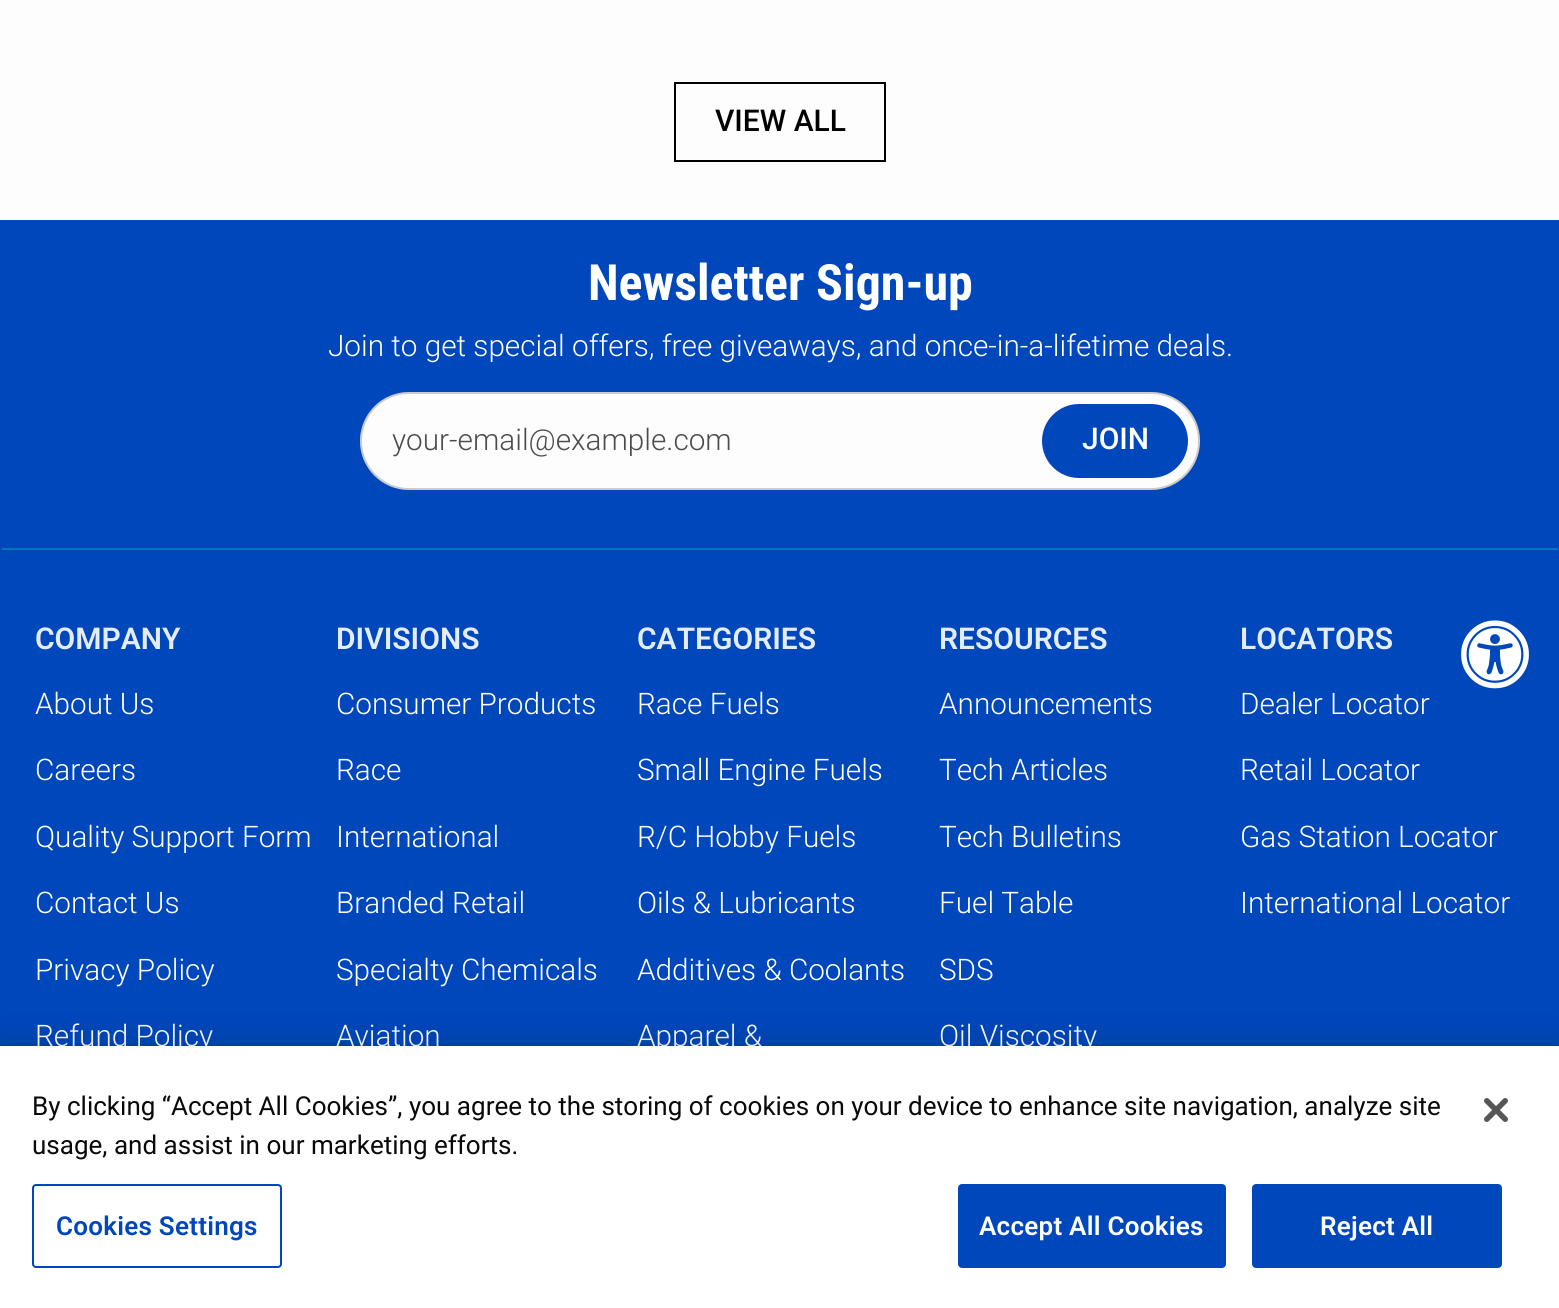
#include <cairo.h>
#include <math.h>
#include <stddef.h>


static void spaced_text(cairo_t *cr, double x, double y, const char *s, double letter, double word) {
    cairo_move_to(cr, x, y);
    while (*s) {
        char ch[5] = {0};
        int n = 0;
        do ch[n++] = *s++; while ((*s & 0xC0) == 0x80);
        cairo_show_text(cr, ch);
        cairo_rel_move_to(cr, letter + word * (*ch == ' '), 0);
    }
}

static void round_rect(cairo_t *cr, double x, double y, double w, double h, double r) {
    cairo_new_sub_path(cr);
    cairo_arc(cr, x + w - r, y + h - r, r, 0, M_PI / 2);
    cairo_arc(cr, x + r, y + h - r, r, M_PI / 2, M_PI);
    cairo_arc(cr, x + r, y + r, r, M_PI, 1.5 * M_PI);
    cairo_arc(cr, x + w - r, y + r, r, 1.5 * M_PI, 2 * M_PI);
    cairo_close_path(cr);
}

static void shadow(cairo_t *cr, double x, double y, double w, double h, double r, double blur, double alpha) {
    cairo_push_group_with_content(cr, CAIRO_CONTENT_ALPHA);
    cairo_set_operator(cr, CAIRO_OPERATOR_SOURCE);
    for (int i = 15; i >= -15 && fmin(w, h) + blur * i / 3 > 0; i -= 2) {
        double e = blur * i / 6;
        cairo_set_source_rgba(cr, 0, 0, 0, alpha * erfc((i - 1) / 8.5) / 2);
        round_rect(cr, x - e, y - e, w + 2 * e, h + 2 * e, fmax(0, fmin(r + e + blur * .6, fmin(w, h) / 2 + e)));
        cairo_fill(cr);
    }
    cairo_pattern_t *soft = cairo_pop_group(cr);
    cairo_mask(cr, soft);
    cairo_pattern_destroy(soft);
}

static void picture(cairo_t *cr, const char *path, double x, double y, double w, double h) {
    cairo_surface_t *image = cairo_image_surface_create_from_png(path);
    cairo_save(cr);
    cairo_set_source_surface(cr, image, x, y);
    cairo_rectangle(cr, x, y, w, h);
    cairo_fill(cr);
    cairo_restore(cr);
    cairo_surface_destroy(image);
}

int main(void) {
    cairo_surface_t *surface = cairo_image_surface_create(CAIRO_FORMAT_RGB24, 1559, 1308);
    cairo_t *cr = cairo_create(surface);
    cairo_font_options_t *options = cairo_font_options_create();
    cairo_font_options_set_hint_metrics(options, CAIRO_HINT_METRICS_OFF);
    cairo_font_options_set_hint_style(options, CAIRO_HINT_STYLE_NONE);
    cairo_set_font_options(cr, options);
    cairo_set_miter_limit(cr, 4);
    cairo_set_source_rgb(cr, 0.992, 0.992, 0.992);
    cairo_paint(cr);
    cairo_rectangle(cr, 675, 83, 210, 78);
    cairo_set_source_rgb(cr, 0, 0, 0);
    cairo_stroke(cr);
    cairo_select_font_face(cr, "Roboto Medium", CAIRO_FONT_SLANT_NORMAL, CAIRO_FONT_WEIGHT_NORMAL);
    cairo_set_font_size(cr, 30);
    cairo_move_to(cr, 715, 131);
    cairo_show_text(cr, "VIEW ALL");
    cairo_set_source_rgb(cr, 0, 0.278, 0.733);
    cairo_rectangle(cr, 0, 220, 1559, 826);
    cairo_fill(cr);
    cairo_select_font_face(cr, "Roboto Condensed", CAIRO_FONT_SLANT_NORMAL, CAIRO_FONT_WEIGHT_BOLD);
    cairo_set_font_size(cr, 50);
    cairo_set_source_rgb(cr, 1, 1, 1);
    cairo_move_to(cr, 588, 300);
    cairo_show_text(cr, "Newsletter Sign-up");
    cairo_select_font_face(cr, "Roboto Light", CAIRO_FONT_SLANT_NORMAL, CAIRO_FONT_WEIGHT_NORMAL);
    cairo_set_font_size(cr, 29.7);
    cairo_move_to(cr, 328, 356);
    cairo_show_text(cr, "Join to get special offers, free giveaways, and once-in-a-lifetime deals.");
    cairo_set_source_rgb(cr, 0.992, 0.992, 0.992);
    round_rect(cr, 360, 392, 840, 98, 49);
    cairo_fill(cr);
    round_rect(cr, 361, 393, 838, 96, 48);
    cairo_set_source_rgba(cr, 0.039, 0.039, 0.039, 0.2);
    cairo_stroke(cr);
    cairo_set_source_rgb(cr, 0.298, 0.298, 0.298);
    cairo_move_to(cr, 392, 450);
    cairo_show_text(cr, "your-email@example.com");
    cairo_set_source_rgb(cr, 0, 0.278, 0.733);
    round_rect(cr, 1042, 404, 146, 74, 37);
    cairo_fill(cr);
    cairo_select_font_face(cr, "Roboto Medium", CAIRO_FONT_SLANT_NORMAL, CAIRO_FONT_WEIGHT_NORMAL);
    cairo_set_font_size(cr, 30);
    cairo_set_source_rgb(cr, 1, 1, 1);
    cairo_move_to(cr, 1082, 449);
    cairo_show_text(cr, "JOIN");
    cairo_set_source_rgb(cr, 0, 0.463, 0.733);
    cairo_rectangle(cr, 2, 548, 1556, 2);
    cairo_fill(cr);
    picture(cr, "img1.png", 1461, 620, 68, 69);
    cairo_select_font_face(cr, "Roboto SemiBold", CAIRO_FONT_SLANT_NORMAL, CAIRO_FONT_WEIGHT_NORMAL);
    cairo_set_source_rgb(cr, 0.894, 0.922, 0.965);
    cairo_move_to(cr, 35, 649);
    cairo_show_text(cr, "COMPANY");
    cairo_select_font_face(cr, "Roboto Light", CAIRO_FONT_SLANT_NORMAL, CAIRO_FONT_WEIGHT_NORMAL);
    cairo_set_font_size(cr, 29.7);
    cairo_set_source_rgb(cr, 1, 1, 1);
    cairo_move_to(cr, 35, 714);
    cairo_show_text(cr, "About Us");
    cairo_move_to(cr, 35, 780);
    cairo_show_text(cr, "Careers");
    cairo_move_to(cr, 35, 847);
    cairo_show_text(cr, "Quality Support Form");
    cairo_move_to(cr, 35, 913);
    cairo_show_text(cr, "Contact Us");
    cairo_move_to(cr, 35, 980);
    cairo_show_text(cr, "Privacy Policy");
    cairo_move_to(cr, 35, 1046);
    cairo_show_text(cr, "Refund Policy");
    cairo_select_font_face(cr, "Roboto SemiBold", CAIRO_FONT_SLANT_NORMAL, CAIRO_FONT_WEIGHT_NORMAL);
    cairo_set_font_size(cr, 30);
    cairo_set_source_rgb(cr, 0.894, 0.922, 0.965);
    cairo_move_to(cr, 336, 649);
    cairo_show_text(cr, "DIVISIONS");
    cairo_select_font_face(cr, "Roboto Light", CAIRO_FONT_SLANT_NORMAL, CAIRO_FONT_WEIGHT_NORMAL);
    cairo_set_font_size(cr, 29.7);
    cairo_set_source_rgb(cr, 1, 1, 1);
    cairo_move_to(cr, 336, 714);
    cairo_show_text(cr, "Consumer Products");
    cairo_move_to(cr, 336, 780);
    cairo_show_text(cr, "Race");
    cairo_move_to(cr, 336, 847);
    cairo_show_text(cr, "International");
    cairo_move_to(cr, 336, 913);
    cairo_show_text(cr, "Branded Retail");
    cairo_move_to(cr, 336, 980);
    cairo_show_text(cr, "Specialty Chemicals");
    cairo_move_to(cr, 336, 1046);
    cairo_show_text(cr, "Aviation");
    cairo_select_font_face(cr, "Roboto SemiBold", CAIRO_FONT_SLANT_NORMAL, CAIRO_FONT_WEIGHT_NORMAL);
    cairo_set_font_size(cr, 30);
    cairo_set_source_rgb(cr, 0.894, 0.922, 0.965);
    cairo_move_to(cr, 637, 649);
    cairo_show_text(cr, "CATEGORIES");
    cairo_select_font_face(cr, "Roboto Light", CAIRO_FONT_SLANT_NORMAL, CAIRO_FONT_WEIGHT_NORMAL);
    cairo_set_font_size(cr, 29.7);
    cairo_set_source_rgb(cr, 1, 1, 1);
    cairo_move_to(cr, 637, 714);
    cairo_show_text(cr, "Race Fuels");
    cairo_move_to(cr, 637, 780);
    cairo_show_text(cr, "Small Engine Fuels");
    cairo_move_to(cr, 637, 847);
    cairo_show_text(cr, "R/C Hobby Fuels");
    cairo_move_to(cr, 637, 913);
    cairo_show_text(cr, "Oils & Lubricants");
    cairo_move_to(cr, 637, 980);
    cairo_show_text(cr, "Additives & Coolants");
    cairo_move_to(cr, 637, 1046);
    cairo_show_text(cr, "Apparel &");
    cairo_select_font_face(cr, "Roboto SemiBold", CAIRO_FONT_SLANT_NORMAL, CAIRO_FONT_WEIGHT_NORMAL);
    cairo_set_font_size(cr, 30);
    cairo_set_source_rgb(cr, 0.894, 0.922, 0.965);
    cairo_move_to(cr, 939, 649);
    cairo_show_text(cr, "RESOURCES");
    cairo_select_font_face(cr, "Roboto Light", CAIRO_FONT_SLANT_NORMAL, CAIRO_FONT_WEIGHT_NORMAL);
    cairo_set_font_size(cr, 29.7);
    cairo_set_source_rgb(cr, 1, 1, 1);
    cairo_move_to(cr, 939, 714);
    cairo_show_text(cr, "Announcements");
    cairo_move_to(cr, 939, 780);
    cairo_show_text(cr, "Tech Articles");
    cairo_move_to(cr, 939, 847);
    cairo_show_text(cr, "Tech Bulletins");
    cairo_move_to(cr, 939, 913);
    cairo_show_text(cr, "Fuel Table");
    cairo_move_to(cr, 939, 980);
    cairo_show_text(cr, "SDS");
    cairo_move_to(cr, 939, 1046);
    cairo_show_text(cr, "Oil Viscosity");
    cairo_select_font_face(cr, "Roboto SemiBold", CAIRO_FONT_SLANT_NORMAL, CAIRO_FONT_WEIGHT_NORMAL);
    cairo_set_font_size(cr, 30);
    cairo_set_source_rgb(cr, 0.894, 0.922, 0.965);
    cairo_move_to(cr, 1240, 649);
    cairo_show_text(cr, "LOCATORS");
    cairo_select_font_face(cr, "Roboto Light", CAIRO_FONT_SLANT_NORMAL, CAIRO_FONT_WEIGHT_NORMAL);
    cairo_set_font_size(cr, 29.7);
    cairo_set_source_rgb(cr, 1, 1, 1);
    cairo_move_to(cr, 1240, 714);
    cairo_show_text(cr, "Dealer Locator");
    cairo_move_to(cr, 1240, 780);
    cairo_show_text(cr, "Retail Locator");
    cairo_move_to(cr, 1240, 847);
    cairo_show_text(cr, "Gas Station Locator");
    cairo_move_to(cr, 1240, 913);
    cairo_show_text(cr, "International Locator");
    cairo_set_source_rgb(cr, 0, 0, 0);
    shadow(cr, 0, 1046, 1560, 262, 0, 18, 0.2);
    cairo_set_source_rgb(cr, 1, 1, 1);
    cairo_rectangle(cr, 0, 1046, 1559, 262);
    cairo_fill(cr);
    cairo_select_font_face(cr, "Roboto", CAIRO_FONT_SLANT_NORMAL, CAIRO_FONT_WEIGHT_NORMAL);
    cairo_set_font_size(cr, 26.02);
    cairo_set_source_rgb(cr, 0.039, 0.039, 0.039);
    cairo_move_to(cr, 32, 1115);
    cairo_show_text(cr, "By clicking “Accept All Cookies”, you agree to the storing of cookies on your device to enhance site navigation, analyze site");
    cairo_move_to(cr, 32, 1154);
    cairo_show_text(cr, "usage, and assist in our marketing efforts.");
    round_rect(cr, 33, 1185, 248, 82, 3);
    cairo_set_source_rgb(cr, 0, 0.278, 0.733);
    cairo_stroke(cr);
    cairo_select_font_face(cr, "Roboto SemiBold", CAIRO_FONT_SLANT_NORMAL, CAIRO_FONT_WEIGHT_NORMAL);
    spaced_text(cr, 56, 1235, "Cookies Settings", 0.25, 0);
    round_rect(cr, 959, 1185, 266, 82, 3);
    cairo_fill_preserve(cr);
    cairo_stroke(cr);
    cairo_set_source_rgb(cr, 1, 1, 1);
    spaced_text(cr, 979, 1235, "Accept All Cookies", 0.25, 0);
    cairo_set_source_rgb(cr, 0, 0.278, 0.733);
    round_rect(cr, 1253, 1185, 248, 82, 3);
    cairo_fill_preserve(cr);
    cairo_stroke(cr);
    cairo_set_source_rgb(cr, 1, 1, 1);
    spaced_text(cr, 1320, 1235, "Reject All", 0.25, 0);
    picture(cr, "img2.png", 1484, 1098, 24, 24);
    cairo_surface_write_to_png(surface, "page.png");
    cairo_font_options_destroy(options);
    cairo_destroy(cr);
    cairo_surface_destroy(surface);
    return 0;
}
